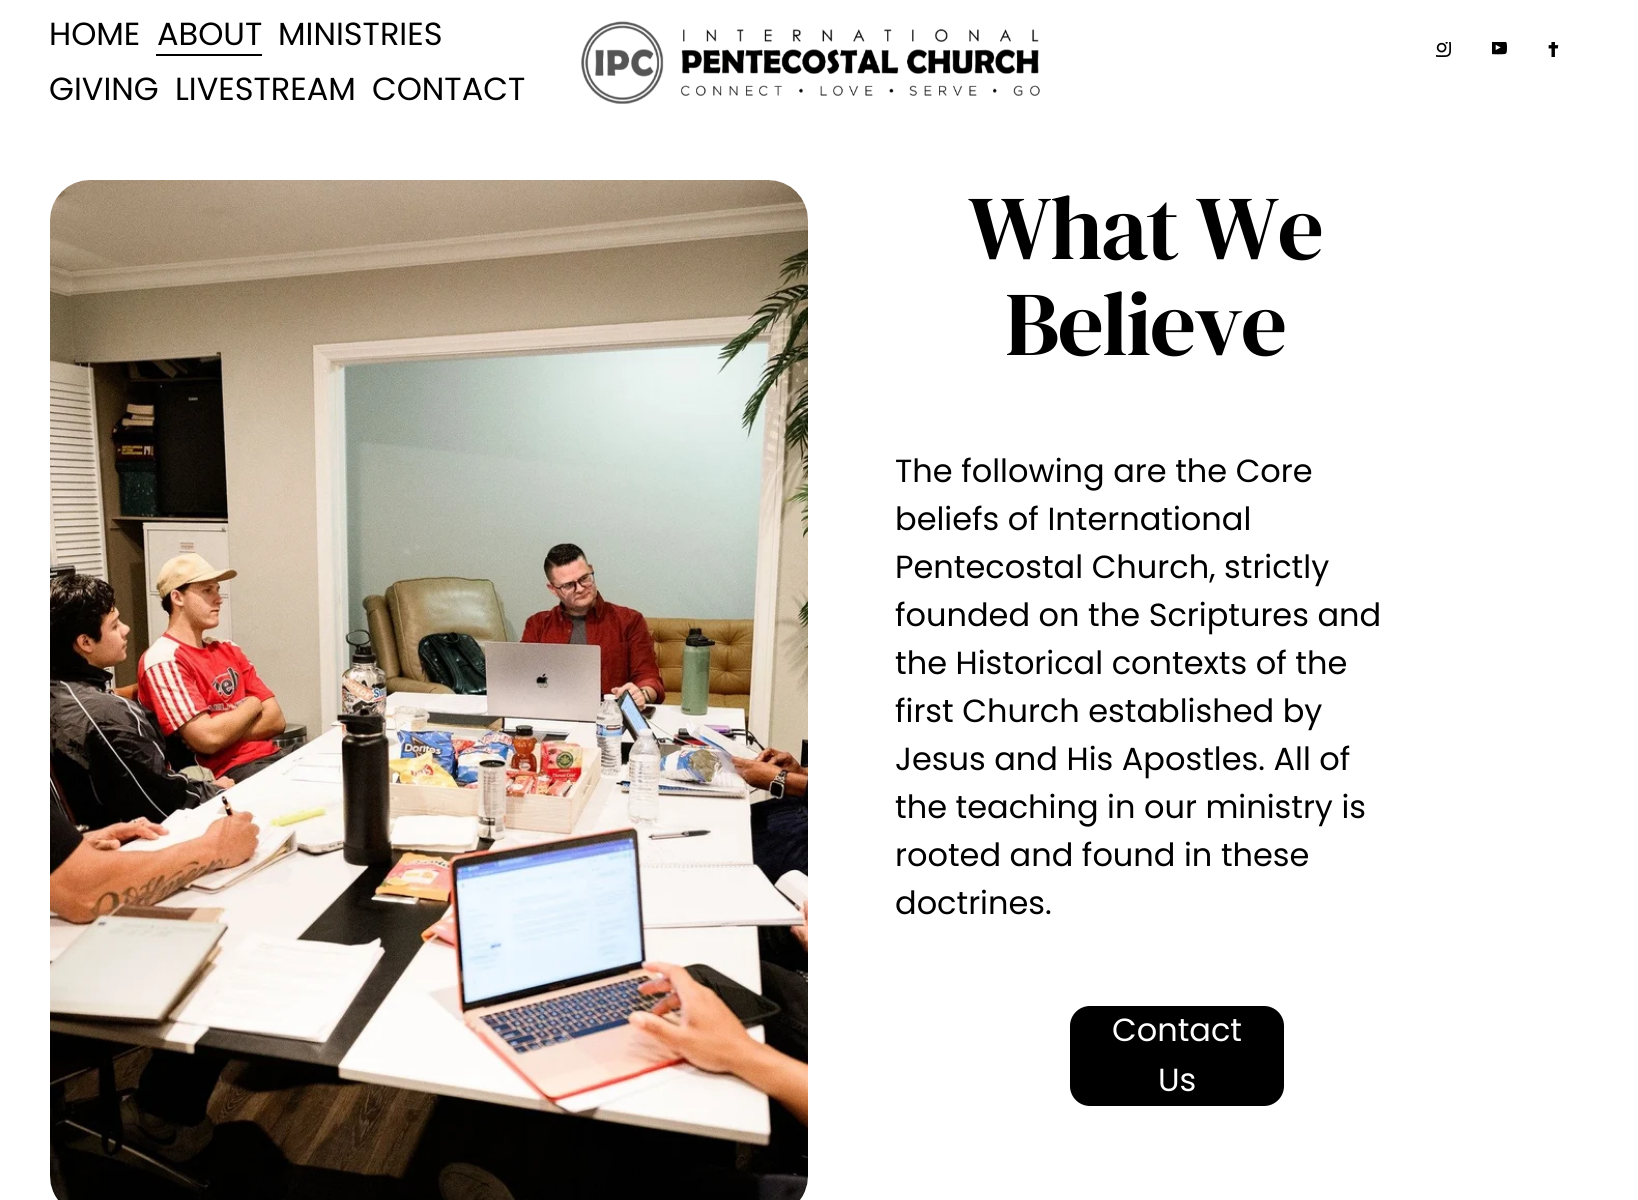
#include <cairo.h>
#include <math.h>
#include <stddef.h>


static void spaced_text(cairo_t *cr, double x, double y, const char *s, double letter, double word) {
    cairo_move_to(cr, x, y);
    while (*s) {
        char ch[5] = {0};
        int n = 0;
        do ch[n++] = *s++; while ((*s & 0xC0) == 0x80);
        cairo_show_text(cr, ch);
        cairo_rel_move_to(cr, letter + word * (*ch == ' '), 0);
    }
}

static void round_rect(cairo_t *cr, double x, double y, double w, double h, double r) {
    cairo_new_sub_path(cr);
    cairo_arc(cr, x + w - r, y + h - r, r, 0, M_PI / 2);
    cairo_arc(cr, x + r, y + h - r, r, M_PI / 2, M_PI);
    cairo_arc(cr, x + r, y + r, r, M_PI, 1.5 * M_PI);
    cairo_arc(cr, x + w - r, y + r, r, 1.5 * M_PI, 2 * M_PI);
    cairo_close_path(cr);
}

static void picture(cairo_t *cr, const char *path, double x, double y, double w, double h) {
    cairo_surface_t *image = cairo_image_surface_create_from_png(path);
    cairo_save(cr);
    cairo_set_source_surface(cr, image, x, y);
    cairo_rectangle(cr, x, y, w, h);
    cairo_fill(cr);
    cairo_restore(cr);
    cairo_surface_destroy(image);
}

int main(void) {
    cairo_surface_t *surface = cairo_image_surface_create(CAIRO_FORMAT_RGB24, 1638, 1200);
    cairo_t *cr = cairo_create(surface);
    cairo_font_options_t *options = cairo_font_options_create();
    cairo_font_options_set_hint_metrics(options, CAIRO_HINT_METRICS_OFF);
    cairo_font_options_set_hint_style(options, CAIRO_HINT_STYLE_NONE);
    cairo_set_font_options(cr, options);
    cairo_set_miter_limit(cr, 4);
    cairo_set_source_rgb(cr, 1, 1, 1);
    cairo_paint(cr);
    cairo_select_font_face(cr, "Poppins", CAIRO_FONT_SLANT_NORMAL, CAIRO_FONT_WEIGHT_NORMAL);
    cairo_set_font_size(cr, 32);
    cairo_set_source_rgb(cr, 0, 0, 0);
    cairo_move_to(cr, 49, 45);
    cairo_show_text(cr, "HOME");
    cairo_rectangle(cr, 156, 54, 106, 2);
    cairo_fill(cr);
    cairo_move_to(cr, 157, 45);
    cairo_show_text(cr, "ABOUT");
    cairo_move_to(cr, 278, 45);
    cairo_show_text(cr, "MINISTRIES");
    cairo_move_to(cr, 49, 100);
    cairo_show_text(cr, "GIVING");
    cairo_move_to(cr, 175, 100);
    cairo_show_text(cr, "LIVESTREAM");
    cairo_move_to(cr, 372, 100);
    cairo_show_text(cr, "CONTACT");
    picture(cr, "img1.png", 581, 21, 459, 83);
    picture(cr, "img2.png", 1436, 42, 15, 15);
    picture(cr, "img3.png", 1492, 42, 15, 13);
    picture(cr, "img4.png", 1548, 42, 11, 15);
    picture(cr, "img5.png", 50, 180, 758, 1020);
    cairo_select_font_face(cr, "DM Serif Display", CAIRO_FONT_SLANT_NORMAL, CAIRO_FONT_WEIGHT_NORMAL);
    cairo_set_font_size(cr, 91);
    spaced_text(cr, 968, 259, "What We", -1.75, 0);
    spaced_text(cr, 1005, 355, "Believe", -1.75, 0);
    cairo_select_font_face(cr, "Poppins", CAIRO_FONT_SLANT_NORMAL, CAIRO_FONT_WEIGHT_NORMAL);
    cairo_set_font_size(cr, 32);
    cairo_move_to(cr, 895, 482);
    cairo_show_text(cr, "The following are the Core");
    cairo_move_to(cr, 895, 530);
    cairo_show_text(cr, "beliefs of International");
    cairo_move_to(cr, 895, 578);
    cairo_show_text(cr, "Pentecostal Church, strictly");
    cairo_move_to(cr, 895, 626);
    cairo_show_text(cr, "founded on the Scriptures and");
    cairo_move_to(cr, 895, 674);
    cairo_show_text(cr, "the Historical contexts of the");
    cairo_move_to(cr, 895, 722);
    cairo_show_text(cr, "first Church established by");
    cairo_move_to(cr, 895, 770);
    cairo_show_text(cr, "Jesus and His Apostles. All of");
    cairo_move_to(cr, 895, 818);
    cairo_show_text(cr, "the teaching in our ministry is");
    cairo_move_to(cr, 895, 866);
    cairo_show_text(cr, "rooted and found in these");
    cairo_move_to(cr, 895, 914);
    cairo_show_text(cr, "doctrines.");
    round_rect(cr, 1070, 1006, 214, 100, 20);
    cairo_fill(cr);
    cairo_set_source_rgb(cr, 1, 1, 1);
    cairo_move_to(cr, 1112, 1041);
    cairo_show_text(cr, "Contact");
    cairo_move_to(cr, 1158, 1091);
    cairo_show_text(cr, "Us");
    cairo_surface_write_to_png(surface, "page.png");
    cairo_font_options_destroy(options);
    cairo_destroy(cr);
    cairo_surface_destroy(surface);
    return 0;
}
